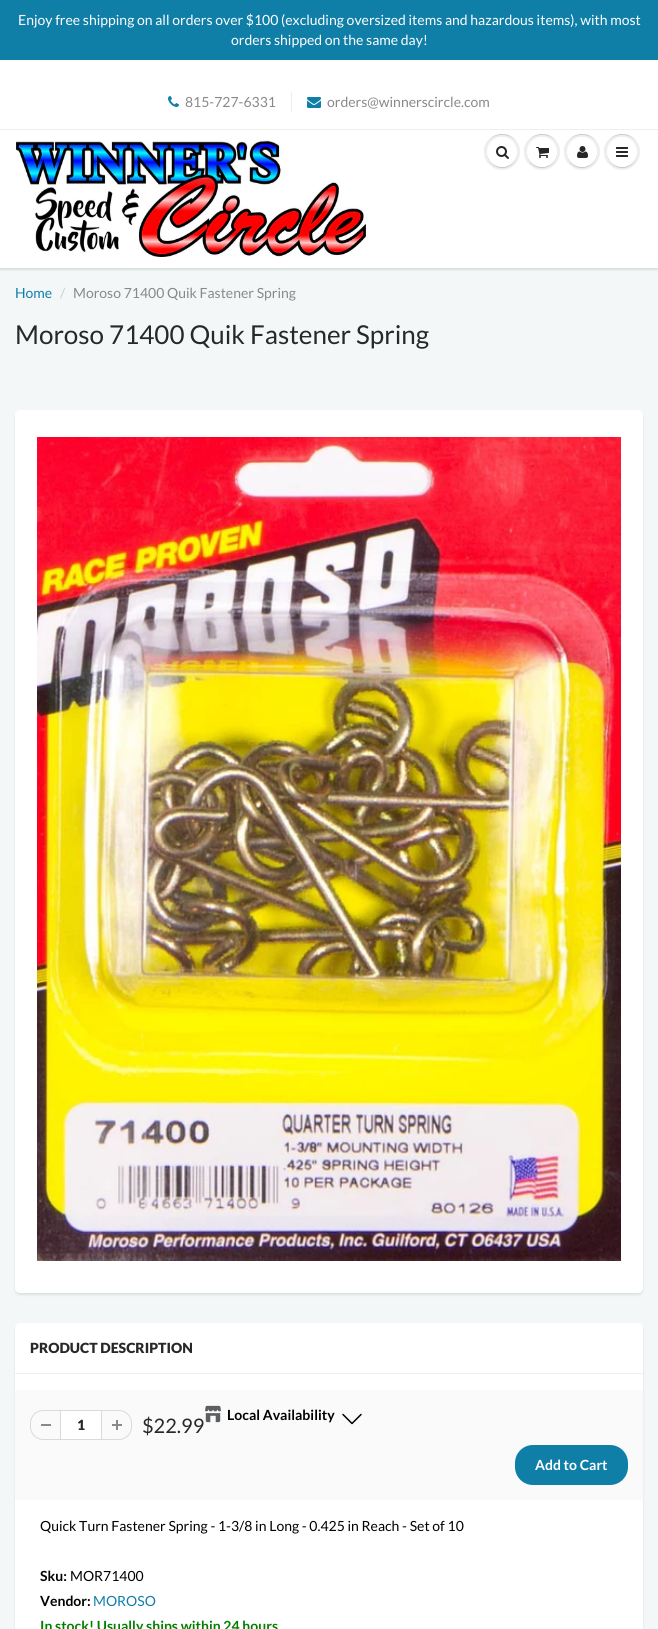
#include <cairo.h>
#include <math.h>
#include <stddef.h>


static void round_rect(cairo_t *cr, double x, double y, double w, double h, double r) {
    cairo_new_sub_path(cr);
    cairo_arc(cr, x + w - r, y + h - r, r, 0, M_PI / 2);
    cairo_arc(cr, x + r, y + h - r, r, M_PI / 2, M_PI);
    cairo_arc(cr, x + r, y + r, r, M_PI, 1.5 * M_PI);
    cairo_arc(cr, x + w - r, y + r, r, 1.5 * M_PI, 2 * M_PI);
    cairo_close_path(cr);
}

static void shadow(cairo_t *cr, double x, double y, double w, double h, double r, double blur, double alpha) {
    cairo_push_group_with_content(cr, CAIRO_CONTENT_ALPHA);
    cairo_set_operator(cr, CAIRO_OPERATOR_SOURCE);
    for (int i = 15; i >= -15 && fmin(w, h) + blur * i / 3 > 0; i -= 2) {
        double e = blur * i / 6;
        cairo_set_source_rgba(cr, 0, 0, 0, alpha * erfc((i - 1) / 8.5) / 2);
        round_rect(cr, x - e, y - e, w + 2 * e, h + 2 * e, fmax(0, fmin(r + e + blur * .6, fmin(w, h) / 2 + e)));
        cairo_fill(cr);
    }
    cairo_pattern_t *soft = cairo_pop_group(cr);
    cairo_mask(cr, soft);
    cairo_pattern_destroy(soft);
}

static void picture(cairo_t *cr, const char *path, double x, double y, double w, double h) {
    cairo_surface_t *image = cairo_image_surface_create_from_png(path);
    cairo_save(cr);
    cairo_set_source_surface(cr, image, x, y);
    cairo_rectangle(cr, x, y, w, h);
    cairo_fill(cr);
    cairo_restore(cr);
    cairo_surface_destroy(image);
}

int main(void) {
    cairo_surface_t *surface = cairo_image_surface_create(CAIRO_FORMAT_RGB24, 658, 1629);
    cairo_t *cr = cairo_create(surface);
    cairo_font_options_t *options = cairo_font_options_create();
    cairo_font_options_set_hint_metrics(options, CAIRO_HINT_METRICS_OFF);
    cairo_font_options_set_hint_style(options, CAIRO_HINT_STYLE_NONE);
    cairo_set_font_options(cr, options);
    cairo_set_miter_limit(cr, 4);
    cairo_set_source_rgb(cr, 1, 1, 1);
    cairo_paint(cr);
    cairo_set_source_rgb(cr, 0.063, 0.498, 0.659);
    cairo_rectangle(cr, 0, 0, 658, 60);
    cairo_fill(cr);
    cairo_select_font_face(cr, "Lato", CAIRO_FONT_SLANT_NORMAL, CAIRO_FONT_WEIGHT_NORMAL);
    cairo_set_font_size(cr, 14);
    cairo_set_source_rgb(cr, 1, 1, 1);
    cairo_move_to(cr, 18, 25);
    cairo_show_text(cr, "Enjoy free shipping on all orders over $100 (excluding oversized items and hazardous items), with most");
    cairo_move_to(cr, 231, 45);
    cairo_show_text(cr, "orders shipped on the same day!");
    picture(cr, "img1.png", 168, 96, 11, 11);
    cairo_set_source_rgb(cr, 0.537, 0.537, 0.537);
    cairo_move_to(cr, 185, 107);
    cairo_show_text(cr, "815-727-6331");
    cairo_set_source_rgb(cr, 0.925, 0.937, 0.937);
    cairo_rectangle(cr, 291, 92, 1, 20);
    cairo_fill(cr);
    picture(cr, "img2.png", 307, 97, 14, 11);
    cairo_set_source_rgb(cr, 0.537, 0.537, 0.537);
    cairo_move_to(cr, 327, 107);
    cairo_show_text(cr, "orders@winnerscircle.com");
    cairo_set_source_rgb(cr, 0.953, 0.965, 0.965);
    cairo_rectangle(cr, 0, 268, 658, 1361);
    cairo_fill(cr);
    cairo_save(cr);
    cairo_rectangle(cr, 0, 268, 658, 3);
    cairo_clip(cr);
    cairo_set_source_rgb(cr, 0.043, 0.098, 0.11);
    shadow(cr, 0, 131, 658, 139, 0, 1, 0.12);
    cairo_restore(cr);
    cairo_set_source_rgb(cr, 0.925, 0.937, 0.937);
    cairo_rectangle(cr, 0, 129, 658, 1);
    cairo_fill(cr);
    picture(cr, "img3.png", 16, 140, 350, 117);
    cairo_set_source_rgb(cr, 0.929, 0.937, 0.937);
    cairo_arc(cr, 502, 152, 18, 0, 2 * M_PI);
    cairo_fill(cr);
    cairo_set_source_rgb(cr, 0.788, 0.796, 0.796);
    cairo_new_path(cr);
    cairo_move_to(cr, 502, 135);
    cairo_curve_to(cr, 514, 135, 520, 143.5, 520, 152.5);
    cairo_curve_to(cr, 520, 149, 519, 145, 517, 142);
    cairo_curve_to(cr, 507, 127, 483.5, 134.5, 484, 152.5);
    cairo_curve_to(cr, 484, 143.5, 490, 135, 502, 135);
    cairo_close_path(cr);
    cairo_fill(cr);
    cairo_new_path(cr);
    cairo_move_to(cr, 487, 152.5);
    cairo_curve_to(cr, 486.5, 167.5, 506, 174, 514.5, 161.5);
    cairo_curve_to(cr, 516, 159, 517, 155.5, 517, 152.5);
    cairo_curve_to(cr, 516.5, 171.5, 487.5, 171.5, 487, 152.5);
    cairo_close_path(cr);
    cairo_fill(cr);
    cairo_set_source_rgb(cr, 1, 1, 1);
    cairo_arc(cr, 502, 152, 15, 0, 2 * M_PI);
    cairo_fill(cr);
    cairo_new_path(cr);
    cairo_move_to(cr, 502, 138);
    cairo_curve_to(cr, 512, 138, 517, 145, 517, 152.5);
    cairo_curve_to(cr, 517, 149.5, 516, 146, 514.5, 143.5);
    cairo_curve_to(cr, 506, 131, 486.5, 137.5, 487, 152.5);
    cairo_curve_to(cr, 487, 145, 492, 138, 502, 138);
    cairo_close_path(cr);
    cairo_fill(cr);
    picture(cr, "img4.png", 496, 146, 13, 13);
    cairo_set_source_rgb(cr, 0.929, 0.937, 0.937);
    cairo_arc(cr, 542, 152, 18, 0, 2 * M_PI);
    cairo_fill(cr);
    cairo_set_source_rgb(cr, 0.788, 0.796, 0.796);
    cairo_new_path(cr);
    cairo_move_to(cr, 542, 135);
    cairo_curve_to(cr, 554, 135, 560, 143.5, 560, 152.5);
    cairo_curve_to(cr, 560, 149, 559, 145, 557, 142);
    cairo_curve_to(cr, 547, 127, 523.5, 134.5, 524, 152.5);
    cairo_curve_to(cr, 524, 143.5, 530, 135, 542, 135);
    cairo_close_path(cr);
    cairo_fill(cr);
    cairo_new_path(cr);
    cairo_move_to(cr, 557, 152.5);
    cairo_curve_to(cr, 556.5, 171.5, 527.5, 171.5, 527, 152.5);
    cairo_curve_to(cr, 527, 155.5, 528, 159, 529.5, 161.5);
    cairo_curve_to(cr, 538, 174, 557.5, 167.5, 557, 152.5);
    cairo_close_path(cr);
    cairo_fill(cr);
    cairo_set_source_rgb(cr, 1, 1, 1);
    cairo_arc(cr, 542, 152, 15, 0, 2 * M_PI);
    cairo_fill(cr);
    cairo_new_path(cr);
    cairo_move_to(cr, 542, 138);
    cairo_curve_to(cr, 552, 138, 557, 145, 557, 152.5);
    cairo_curve_to(cr, 557, 149.5, 556, 146, 554.5, 143.5);
    cairo_curve_to(cr, 546, 131, 526.5, 137.5, 527, 152.5);
    cairo_curve_to(cr, 527, 145, 532, 138, 542, 138);
    cairo_close_path(cr);
    cairo_fill(cr);
    picture(cr, "img5.png", 536, 147, 13, 11);
    cairo_set_source_rgb(cr, 0.929, 0.937, 0.937);
    cairo_arc(cr, 582, 152, 18, 0, 2 * M_PI);
    cairo_fill(cr);
    cairo_set_source_rgb(cr, 0.788, 0.796, 0.796);
    cairo_new_path(cr);
    cairo_move_to(cr, 582, 135);
    cairo_curve_to(cr, 594, 135, 600, 143.5, 600, 152.5);
    cairo_curve_to(cr, 600, 149, 599, 145, 597, 142);
    cairo_curve_to(cr, 587, 127, 563.5, 134.5, 564, 152.5);
    cairo_curve_to(cr, 564, 143.5, 570, 135, 582, 135);
    cairo_close_path(cr);
    cairo_fill(cr);
    cairo_new_path(cr);
    cairo_move_to(cr, 597, 152.5);
    cairo_curve_to(cr, 596.5, 171.5, 567.5, 171.5, 567, 152.5);
    cairo_curve_to(cr, 567, 155.5, 568, 159, 569.5, 161.5);
    cairo_curve_to(cr, 578, 174, 597.5, 167.5, 597, 152.5);
    cairo_close_path(cr);
    cairo_fill(cr);
    cairo_set_source_rgb(cr, 1, 1, 1);
    cairo_arc(cr, 582, 152, 15, 0, 2 * M_PI);
    cairo_fill(cr);
    cairo_new_path(cr);
    cairo_move_to(cr, 582, 138);
    cairo_curve_to(cr, 592, 138, 597, 145, 597, 152.5);
    cairo_curve_to(cr, 597, 149.5, 596, 146, 594.5, 143.5);
    cairo_curve_to(cr, 586, 131, 566.5, 137.5, 567, 152.5);
    cairo_curve_to(cr, 567, 145, 572, 138, 582, 138);
    cairo_close_path(cr);
    cairo_fill(cr);
    picture(cr, "img6.png", 577, 146, 11, 12);
    cairo_set_source_rgb(cr, 0.929, 0.937, 0.937);
    cairo_arc(cr, 622, 152, 18, 0, 2 * M_PI);
    cairo_fill(cr);
    cairo_set_source_rgb(cr, 0.788, 0.796, 0.796);
    cairo_new_path(cr);
    cairo_move_to(cr, 622, 135);
    cairo_curve_to(cr, 634, 135, 640, 143.5, 640, 152.5);
    cairo_curve_to(cr, 640, 149, 639, 145, 637, 142);
    cairo_curve_to(cr, 627, 127, 603.5, 134.5, 604, 152.5);
    cairo_curve_to(cr, 604, 143.5, 610, 135, 622, 135);
    cairo_close_path(cr);
    cairo_fill(cr);
    cairo_new_path(cr);
    cairo_move_to(cr, 637, 152.5);
    cairo_curve_to(cr, 636.5, 171.5, 607.5, 171.5, 607, 152.5);
    cairo_curve_to(cr, 606.5, 167.5, 626, 174, 634.5, 161.5);
    cairo_curve_to(cr, 636, 159, 637, 155.5, 637, 152.5);
    cairo_close_path(cr);
    cairo_fill(cr);
    cairo_set_source_rgb(cr, 1, 1, 1);
    cairo_arc(cr, 622, 152, 15, 0, 2 * M_PI);
    cairo_fill(cr);
    cairo_new_path(cr);
    cairo_move_to(cr, 622, 138);
    cairo_curve_to(cr, 632, 138, 637, 145, 637, 152.5);
    cairo_curve_to(cr, 637, 149.5, 636, 146, 634.5, 143.5);
    cairo_curve_to(cr, 626, 131, 606.5, 137.5, 607, 152.5);
    cairo_curve_to(cr, 607, 145, 612, 138, 622, 138);
    cairo_close_path(cr);
    cairo_fill(cr);
    picture(cr, "img7.png", 616, 147, 12, 10);
    cairo_set_source_rgb(cr, 0.063, 0.498, 0.659);
    cairo_move_to(cr, 15, 298);
    cairo_show_text(cr, "Home");
    cairo_set_source_rgb(cr, 0.8, 0.8, 0.8);
    cairo_move_to(cr, 60, 298);
    cairo_show_text(cr, "/");
    cairo_set_source_rgb(cr, 0.537, 0.537, 0.537);
    cairo_move_to(cr, 73, 298);
    cairo_show_text(cr, "Moroso 71400 Quik Fastener Spring");
    cairo_set_font_size(cr, 26);
    cairo_set_source_rgb(cr, 0.157, 0.157, 0.153);
    cairo_move_to(cr, 15, 344);
    cairo_show_text(cr, "Moroso 71400 Quik Fastener Spring");
    cairo_set_source_rgb(cr, 0.043, 0.098, 0.11);
    shadow(cr, 15, 412, 628, 883, 5, 1, 0.1);
    cairo_set_source_rgb(cr, 1, 1, 1);
    round_rect(cr, 15, 410, 628, 883, 5);
    cairo_fill(cr);
    picture(cr, "img8.png", 37, 437, 584, 824);
    cairo_set_source_rgb(cr, 0.043, 0.098, 0.11);
    shadow(cr, 15, 1325, 628, 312, 5, 1, 0.1);
    cairo_set_source_rgb(cr, 1, 1, 1);
    round_rect(cr, 15, 1323, 628, 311, 5);
    cairo_fill(cr);
    cairo_set_source_rgb(cr, 0.937, 0.937, 0.937);
    cairo_rectangle(cr, 15, 1373, 628, 1);
    cairo_fill(cr);
    cairo_select_font_face(cr, "Lato Black", CAIRO_FONT_SLANT_NORMAL, CAIRO_FONT_WEIGHT_NORMAL);
    cairo_set_font_size(cr, 14);
    cairo_set_source_rgb(cr, 0.157, 0.157, 0.153);
    cairo_move_to(cr, 30, 1353);
    cairo_show_text(cr, "PRODUCT DESCRIPTION");
    cairo_set_source_rgb(cr, 0.98, 0.98, 0.98);
    cairo_rectangle(cr, 15, 1390, 628, 110);
    cairo_fill(cr);
    cairo_set_source_rgb(cr, 0.537, 0.537, 0.537);
    cairo_rectangle(cr, 41, 1424, 10, 2);
    cairo_fill(cr);
    cairo_set_source_rgb(cr, 0.843, 0.859, 0.859);
    cairo_set_fill_rule(cr, CAIRO_FILL_RULE_EVEN_ODD);
    cairo_new_path(cr);
    cairo_move_to(cr, 43, 1410);
    cairo_line_to(cr, 60, 1410);
    cairo_line_to(cr, 60, 1440);
    cairo_line_to(cr, 43, 1440);
    cairo_curve_to(cr, 36, 1440, 30, 1434, 30, 1427);
    cairo_line_to(cr, 30, 1423);
    cairo_curve_to(cr, 30, 1416, 36, 1410, 43, 1410);
    cairo_close_path(cr);
    cairo_move_to(cr, 43, 1411);
    cairo_line_to(cr, 60, 1411);
    cairo_line_to(cr, 60, 1439);
    cairo_line_to(cr, 43, 1439);
    cairo_curve_to(cr, 36.5, 1439, 31, 1433.5, 31, 1427);
    cairo_line_to(cr, 31, 1423);
    cairo_curve_to(cr, 31, 1416.5, 36.5, 1411, 43, 1411);
    cairo_close_path(cr);
    cairo_fill(cr);
    cairo_set_source_rgb(cr, 1, 1, 1);
    cairo_rectangle(cr, 60.5, 1410.5, 41, 29);
    cairo_fill_preserve(cr);
    cairo_set_source_rgb(cr, 0.843, 0.859, 0.859);
    cairo_set_line_width(cr, 1);
    cairo_stroke(cr);
    cairo_set_source_rgb(cr, 0.157, 0.157, 0.153);
    cairo_move_to(cr, 77, 1430);
    cairo_show_text(cr, "1");
    picture(cr, "img9.png", 112, 1420, 10, 10);
    cairo_set_source_rgb(cr, 0.843, 0.859, 0.859);
    cairo_new_path(cr);
    cairo_move_to(cr, 102, 1410);
    cairo_line_to(cr, 119, 1410);
    cairo_curve_to(cr, 126, 1410, 132, 1416, 132, 1423);
    cairo_line_to(cr, 132, 1427);
    cairo_curve_to(cr, 132, 1434, 126, 1440, 119, 1440);
    cairo_line_to(cr, 102, 1440);
    cairo_close_path(cr);
    cairo_move_to(cr, 102, 1411);
    cairo_line_to(cr, 119, 1411);
    cairo_curve_to(cr, 125.5, 1411, 131, 1416.5, 131, 1423);
    cairo_line_to(cr, 131, 1427);
    cairo_curve_to(cr, 131, 1433.5, 125.5, 1439, 119, 1439);
    cairo_line_to(cr, 102, 1439);
    cairo_close_path(cr);
    cairo_fill(cr);
    cairo_select_font_face(cr, "Lato", CAIRO_FONT_SLANT_NORMAL, CAIRO_FONT_WEIGHT_NORMAL);
    cairo_set_font_size(cr, 20);
    cairo_set_source_rgb(cr, 0.157, 0.157, 0.153);
    cairo_move_to(cr, 142, 1433);
    cairo_show_text(cr, "$22.99");
    picture(cr, "img10.png", 205, 1405, 16, 18);
    cairo_select_font_face(cr, "Lato", CAIRO_FONT_SLANT_NORMAL, CAIRO_FONT_WEIGHT_BOLD);
    cairo_set_font_size(cr, 14);
    cairo_set_source_rgb(cr, 0, 0, 0);
    cairo_move_to(cr, 227, 1420);
    cairo_show_text(cr, "Local Availability");
    picture(cr, "img11.png", 342, 1413, 20, 12);
    cairo_set_source_rgb(cr, 0.063, 0.498, 0.659);
    round_rect(cr, 515, 1445, 113, 40, 18);
    cairo_fill(cr);
    cairo_set_source_rgb(cr, 1, 1, 1);
    cairo_move_to(cr, 535, 1470);
    cairo_show_text(cr, "Add to Cart");
    cairo_select_font_face(cr, "Lato", CAIRO_FONT_SLANT_NORMAL, CAIRO_FONT_WEIGHT_NORMAL);
    cairo_set_source_rgb(cr, 0, 0, 0);
    cairo_move_to(cr, 40, 1531);
    cairo_show_text(cr, "Quick Turn Fastener Spring - 1-3/8 in Long - 0.425 in Reach - Set of 10");
    cairo_select_font_face(cr, "Lato", CAIRO_FONT_SLANT_NORMAL, CAIRO_FONT_WEIGHT_BOLD);
    cairo_move_to(cr, 40, 1581);
    cairo_show_text(cr, "Sku:");
    cairo_select_font_face(cr, "Lato", CAIRO_FONT_SLANT_NORMAL, CAIRO_FONT_WEIGHT_NORMAL);
    cairo_move_to(cr, 70, 1581);
    cairo_show_text(cr, "MOR71400");
    cairo_select_font_face(cr, "Lato", CAIRO_FONT_SLANT_NORMAL, CAIRO_FONT_WEIGHT_BOLD);
    cairo_move_to(cr, 40, 1606);
    cairo_show_text(cr, "Vendor:");
    cairo_select_font_face(cr, "Lato", CAIRO_FONT_SLANT_NORMAL, CAIRO_FONT_WEIGHT_NORMAL);
    cairo_set_source_rgb(cr, 0.063, 0.498, 0.659);
    cairo_move_to(cr, 93, 1606);
    cairo_show_text(cr, "MOROSO");
    cairo_select_font_face(cr, "Lato", CAIRO_FONT_SLANT_NORMAL, CAIRO_FONT_WEIGHT_BOLD);
    cairo_set_source_rgb(cr, 0, 0.502, 0);
    cairo_move_to(cr, 40, 1631);
    cairo_show_text(cr, "In stock! Usually ships within 24 hours");
    cairo_surface_write_to_png(surface, "page.png");
    cairo_font_options_destroy(options);
    cairo_destroy(cr);
    cairo_surface_destroy(surface);
    return 0;
}
